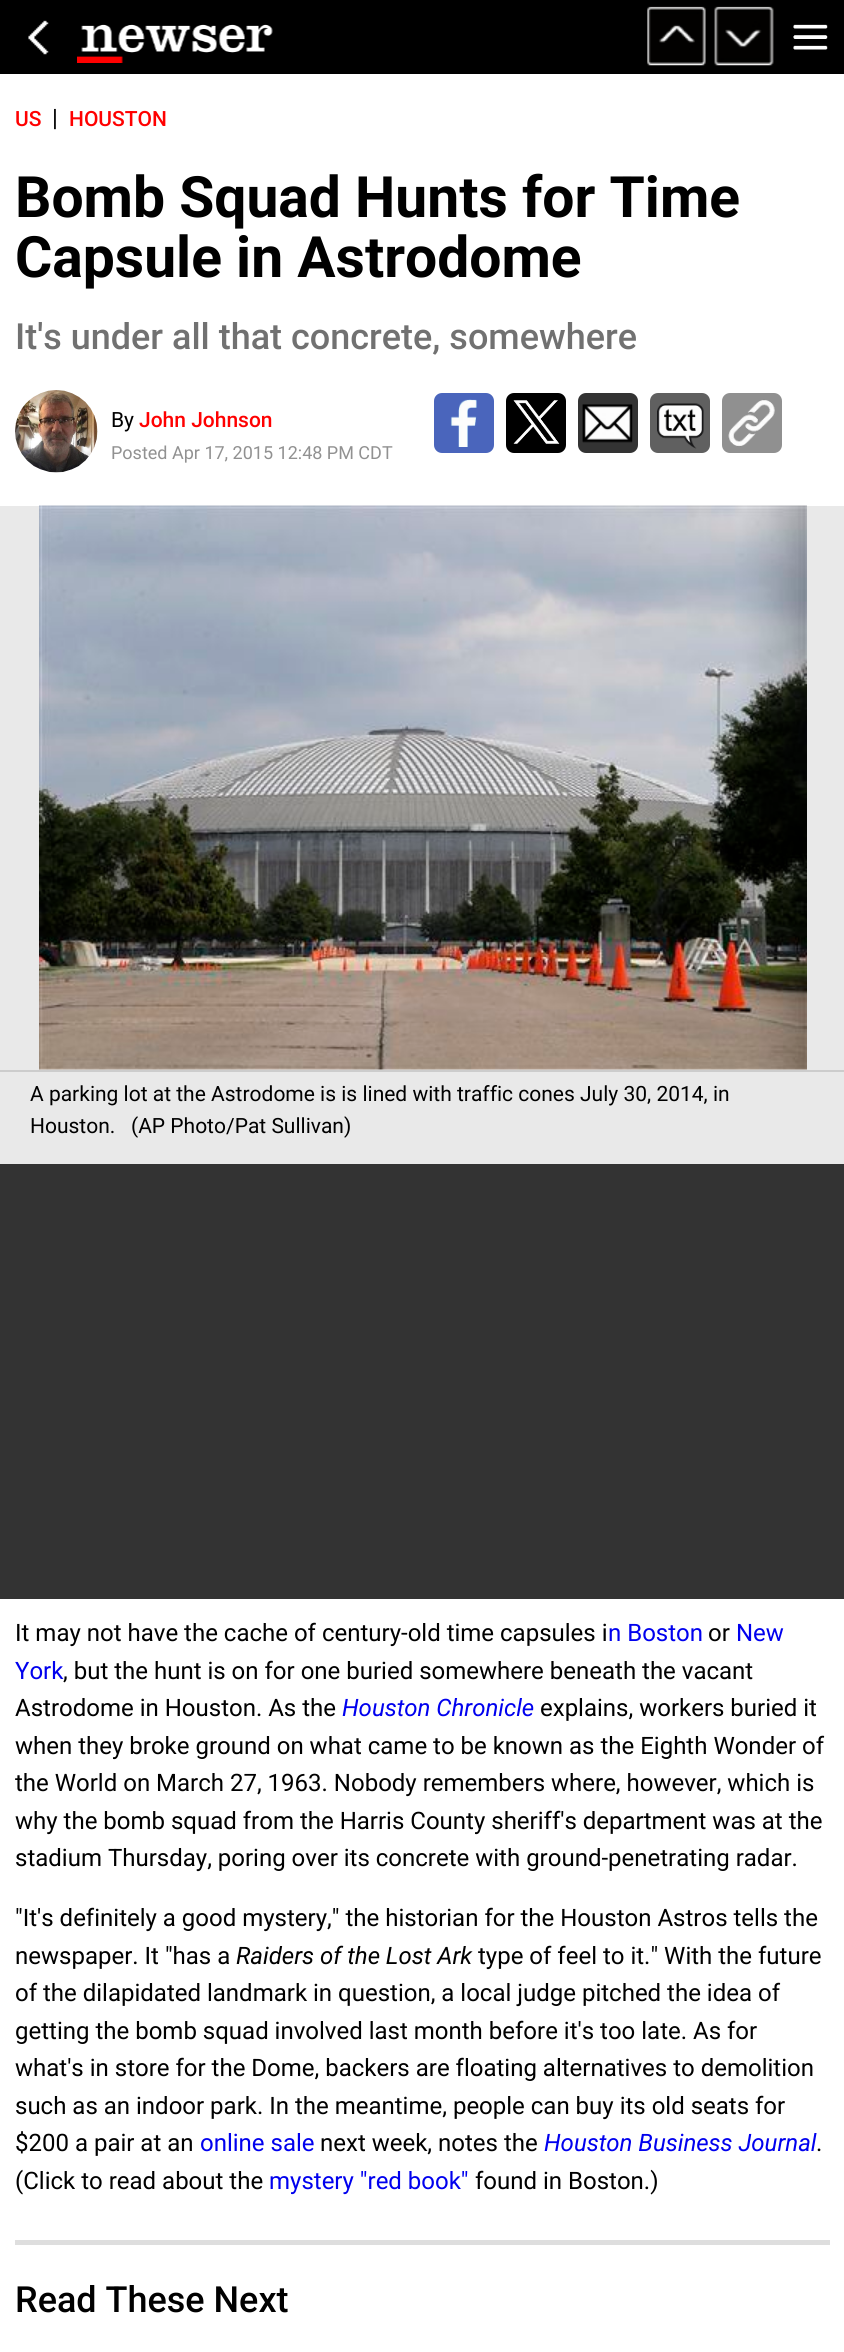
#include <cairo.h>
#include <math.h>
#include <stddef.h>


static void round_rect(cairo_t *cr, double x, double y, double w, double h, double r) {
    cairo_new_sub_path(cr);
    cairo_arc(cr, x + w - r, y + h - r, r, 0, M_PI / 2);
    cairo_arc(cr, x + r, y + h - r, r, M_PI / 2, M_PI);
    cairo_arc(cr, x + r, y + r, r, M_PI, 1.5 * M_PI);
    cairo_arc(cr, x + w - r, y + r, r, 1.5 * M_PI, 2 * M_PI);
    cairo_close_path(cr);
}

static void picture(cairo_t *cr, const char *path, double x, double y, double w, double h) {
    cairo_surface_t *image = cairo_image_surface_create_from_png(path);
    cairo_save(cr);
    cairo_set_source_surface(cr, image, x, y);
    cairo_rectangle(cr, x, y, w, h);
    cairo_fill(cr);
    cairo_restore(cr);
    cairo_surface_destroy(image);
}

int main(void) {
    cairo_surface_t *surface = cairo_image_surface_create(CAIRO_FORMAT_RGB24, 844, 2352);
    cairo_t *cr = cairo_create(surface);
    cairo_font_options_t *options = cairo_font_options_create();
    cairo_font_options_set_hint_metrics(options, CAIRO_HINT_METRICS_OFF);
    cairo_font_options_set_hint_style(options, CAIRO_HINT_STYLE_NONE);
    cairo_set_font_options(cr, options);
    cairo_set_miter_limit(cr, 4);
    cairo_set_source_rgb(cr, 1, 1, 1);
    cairo_paint(cr);
    cairo_set_source_rgb(cr, 0, 0, 0);
    cairo_rectangle(cr, 0, 0, 844, 74);
    cairo_fill(cr);
    picture(cr, "img1.png", 28, 20, 21, 35);
    picture(cr, "img2.png", 77, 24, 196, 39);
    picture(cr, "img3.png", 647, 6, 59, 60);
    picture(cr, "img4.png", 714, 6, 60, 60);
    picture(cr, "img5.png", 793, 24, 35, 26);
    cairo_select_font_face(cr, "Roboto Medium", CAIRO_FONT_SLANT_NORMAL, CAIRO_FONT_WEIGHT_NORMAL);
    cairo_set_font_size(cr, 21);
    cairo_set_source_rgb(cr, 1, 0, 0);
    cairo_move_to(cr, 15, 126);
    cairo_show_text(cr, "US");
    cairo_select_font_face(cr, "Roboto", CAIRO_FONT_SLANT_NORMAL, CAIRO_FONT_WEIGHT_NORMAL);
    cairo_set_font_size(cr, 24);
    cairo_set_source_rgb(cr, 0, 0, 0);
    cairo_move_to(cr, 52, 126);
    cairo_show_text(cr, "|");
    cairo_select_font_face(cr, "Roboto Medium", CAIRO_FONT_SLANT_NORMAL, CAIRO_FONT_WEIGHT_NORMAL);
    cairo_set_font_size(cr, 21);
    cairo_set_source_rgb(cr, 1, 0, 0);
    cairo_move_to(cr, 69, 126);
    cairo_show_text(cr, "HOUSTON");
    cairo_select_font_face(cr, "Roboto", CAIRO_FONT_SLANT_NORMAL, CAIRO_FONT_WEIGHT_BOLD);
    cairo_set_font_size(cr, 57);
    cairo_set_source_rgb(cr, 0, 0, 0);
    cairo_move_to(cr, 15, 217);
    cairo_show_text(cr, "Bomb Squad Hunts for Time");
    cairo_move_to(cr, 15, 277);
    cairo_show_text(cr, "Capsule in Astrodome");
    cairo_select_font_face(cr, "Roboto Medium", CAIRO_FONT_SLANT_NORMAL, CAIRO_FONT_WEIGHT_NORMAL);
    cairo_set_font_size(cr, 36);
    cairo_set_source_rgb(cr, 0.443, 0.443, 0.443);
    cairo_move_to(cr, 15, 349);
    cairo_show_text(cr, "It's under all that concrete, somewhere");
    picture(cr, "img6.png", 15, 390, 83, 83);
    cairo_select_font_face(cr, "Roboto", CAIRO_FONT_SLANT_NORMAL, CAIRO_FONT_WEIGHT_NORMAL);
    cairo_set_font_size(cr, 21);
    cairo_set_source_rgb(cr, 0, 0, 0);
    cairo_move_to(cr, 111, 427);
    cairo_show_text(cr, "By");
    cairo_select_font_face(cr, "Roboto Medium", CAIRO_FONT_SLANT_NORMAL, CAIRO_FONT_WEIGHT_NORMAL);
    cairo_set_source_rgb(cr, 1, 0, 0);
    cairo_move_to(cr, 139, 427);
    cairo_show_text(cr, "John Johnson");
    cairo_select_font_face(cr, "Roboto", CAIRO_FONT_SLANT_NORMAL, CAIRO_FONT_WEIGHT_NORMAL);
    cairo_set_font_size(cr, 18);
    cairo_set_source_rgb(cr, 0.569, 0.569, 0.569);
    cairo_move_to(cr, 111, 459);
    cairo_show_text(cr, "Posted Apr 17, 2015 12:48 PM CDT");
    cairo_set_source_rgb(cr, 0.29, 0.396, 0.737);
    round_rect(cr, 434, 393, 60, 60, 8);
    cairo_fill(cr);
    picture(cr, "img7.png", 450, 399, 27, 48);
    cairo_set_source_rgb(cr, 0, 0, 0);
    round_rect(cr, 506, 393, 60, 60, 8);
    cairo_fill(cr);
    picture(cr, "img8.png", 513, 400, 47, 44);
    cairo_set_source_rgb(cr, 0.2, 0.2, 0.2);
    round_rect(cr, 578, 393, 60, 60, 8);
    cairo_fill(cr);
    picture(cr, "img9.png", 582, 404, 51, 39);
    cairo_set_source_rgb(cr, 0.376, 0.376, 0.376);
    round_rect(cr, 650, 393, 60, 60, 8);
    cairo_fill(cr);
    picture(cr, "img10.png", 657, 403, 47, 46);
    cairo_set_source_rgb(cr, 0.565, 0.565, 0.565);
    round_rect(cr, 722, 393, 60, 60, 8);
    cairo_fill(cr);
    picture(cr, "img11.png", 728, 399, 47, 48);
    cairo_set_source_rgb(cr, 0.914, 0.914, 0.914);
    cairo_rectangle(cr, 0, 506, 844, 658);
    cairo_fill(cr);
    cairo_set_source_rgb(cr, 0.8, 0.8, 0.8);
    cairo_rectangle(cr, 0, 1070, 844, 2);
    cairo_fill(cr);
    picture(cr, "img12.png", 39, 505, 768, 565);
    cairo_set_font_size(cr, 21);
    cairo_set_source_rgb(cr, 0, 0, 0);
    cairo_move_to(cr, 30, 1101);
    cairo_show_text(cr, "A parking lot at the Astrodome is is lined with traffic cones July 30, 2014, in");
    cairo_move_to(cr, 30, 1133);
    cairo_show_text(cr, "Houston.   (AP Photo/Pat Sullivan)");
    cairo_set_source_rgb(cr, 0.2, 0.2, 0.2);
    cairo_rectangle(cr, 0, 1164, 844, 435);
    cairo_fill(cr);
    cairo_set_font_size(cr, 24);
    cairo_set_source_rgb(cr, 0, 0, 0);
    cairo_move_to(cr, 15, 1641);
    cairo_show_text(cr, "It may not have the cache of century-old time capsules i");
    cairo_set_source_rgb(cr, 0, 0, 0.933);
    cairo_move_to(cr, 608, 1641);
    cairo_show_text(cr, "n Boston");
    cairo_set_source_rgb(cr, 0, 0, 0);
    cairo_move_to(cr, 708, 1641);
    cairo_show_text(cr, "or");
    cairo_set_source_rgb(cr, 0, 0, 0.933);
    cairo_move_to(cr, 736, 1641);
    cairo_show_text(cr, "New");
    cairo_move_to(cr, 15, 1679);
    cairo_show_text(cr, "York");
    cairo_set_source_rgb(cr, 0, 0, 0);
    cairo_move_to(cr, 63, 1679);
    cairo_show_text(cr, ", but the hunt is on for one buried somewhere beneath the vacant");
    cairo_move_to(cr, 15, 1716);
    cairo_show_text(cr, "Astrodome in Houston. As the");
    cairo_select_font_face(cr, "Roboto", CAIRO_FONT_SLANT_ITALIC, CAIRO_FONT_WEIGHT_NORMAL);
    cairo_set_source_rgb(cr, 0, 0, 0.933);
    cairo_move_to(cr, 342, 1716);
    cairo_show_text(cr, "Houston Chronicle");
    cairo_select_font_face(cr, "Roboto", CAIRO_FONT_SLANT_NORMAL, CAIRO_FONT_WEIGHT_NORMAL);
    cairo_set_source_rgb(cr, 0, 0, 0);
    cairo_move_to(cr, 540, 1716);
    cairo_show_text(cr, "explains, workers buried it");
    cairo_move_to(cr, 15, 1754);
    cairo_show_text(cr, "when they broke ground on what came to be known as the Eighth Wonder of");
    cairo_move_to(cr, 15, 1791);
    cairo_show_text(cr, "the World on March 27, 1963. Nobody remembers where, however, which is");
    cairo_move_to(cr, 15, 1829);
    cairo_show_text(cr, "why the bomb squad from the Harris County sheriff's department was at the");
    cairo_move_to(cr, 15, 1866);
    cairo_show_text(cr, "stadium Thursday, poring over its concrete with ground-penetrating radar.");
    cairo_move_to(cr, 15, 1926);
    cairo_show_text(cr, "\"It's definitely a good mystery,\" the historian for the Houston Astros tells the");
    cairo_move_to(cr, 15, 1964);
    cairo_show_text(cr, "newspaper. It \"has a");
    cairo_select_font_face(cr, "Roboto", CAIRO_FONT_SLANT_ITALIC, CAIRO_FONT_WEIGHT_NORMAL);
    cairo_move_to(cr, 236, 1964);
    cairo_show_text(cr, "Raiders of the Lost Ark");
    cairo_select_font_face(cr, "Roboto", CAIRO_FONT_SLANT_NORMAL, CAIRO_FONT_WEIGHT_NORMAL);
    cairo_move_to(cr, 478, 1964);
    cairo_show_text(cr, "type of feel to it.\" With the future");
    cairo_move_to(cr, 15, 2001);
    cairo_show_text(cr, "of the dilapidated landmark in question, a local judge pitched the idea of");
    cairo_move_to(cr, 15, 2039);
    cairo_show_text(cr, "getting the bomb squad involved last month before it's too late. As for");
    cairo_move_to(cr, 15, 2076);
    cairo_show_text(cr, "what's in store for the Dome, backers are floating alternatives to demolition");
    cairo_move_to(cr, 15, 2114);
    cairo_show_text(cr, "such as an indoor park. In the meantime, people can buy its old seats for");
    cairo_move_to(cr, 15, 2151);
    cairo_show_text(cr, "$200 a pair at an");
    cairo_set_source_rgb(cr, 0, 0, 0.933);
    cairo_move_to(cr, 200, 2151);
    cairo_show_text(cr, "online sale");
    cairo_set_source_rgb(cr, 0, 0, 0);
    cairo_move_to(cr, 320, 2151);
    cairo_show_text(cr, "next week, notes the");
    cairo_select_font_face(cr, "Roboto", CAIRO_FONT_SLANT_ITALIC, CAIRO_FONT_WEIGHT_NORMAL);
    cairo_set_source_rgb(cr, 0, 0, 0.933);
    cairo_move_to(cr, 544, 2151);
    cairo_show_text(cr, "Houston Business Journal");
    cairo_select_font_face(cr, "Roboto", CAIRO_FONT_SLANT_NORMAL, CAIRO_FONT_WEIGHT_NORMAL);
    cairo_set_source_rgb(cr, 0, 0, 0);
    cairo_move_to(cr, 816, 2151);
    cairo_show_text(cr, ".");
    cairo_move_to(cr, 15, 2189);
    cairo_show_text(cr, "(Click to read about the");
    cairo_set_source_rgb(cr, 0, 0, 0.933);
    cairo_move_to(cr, 269, 2189);
    cairo_show_text(cr, "mystery \"red book\"");
    cairo_set_source_rgb(cr, 0, 0, 0);
    cairo_move_to(cr, 475, 2189);
    cairo_show_text(cr, "found in Boston.)");
    cairo_set_source_rgb(cr, 0.871, 0.871, 0.871);
    cairo_rectangle(cr, 15, 2240, 815, 5);
    cairo_fill(cr);
    cairo_select_font_face(cr, "Roboto Medium", CAIRO_FONT_SLANT_NORMAL, CAIRO_FONT_WEIGHT_NORMAL);
    cairo_set_font_size(cr, 36);
    cairo_set_source_rgb(cr, 0, 0, 0);
    cairo_move_to(cr, 15, 2312);
    cairo_show_text(cr, "Read These Next");
    cairo_surface_write_to_png(surface, "page.png");
    cairo_font_options_destroy(options);
    cairo_destroy(cr);
    cairo_surface_destroy(surface);
    return 0;
}
